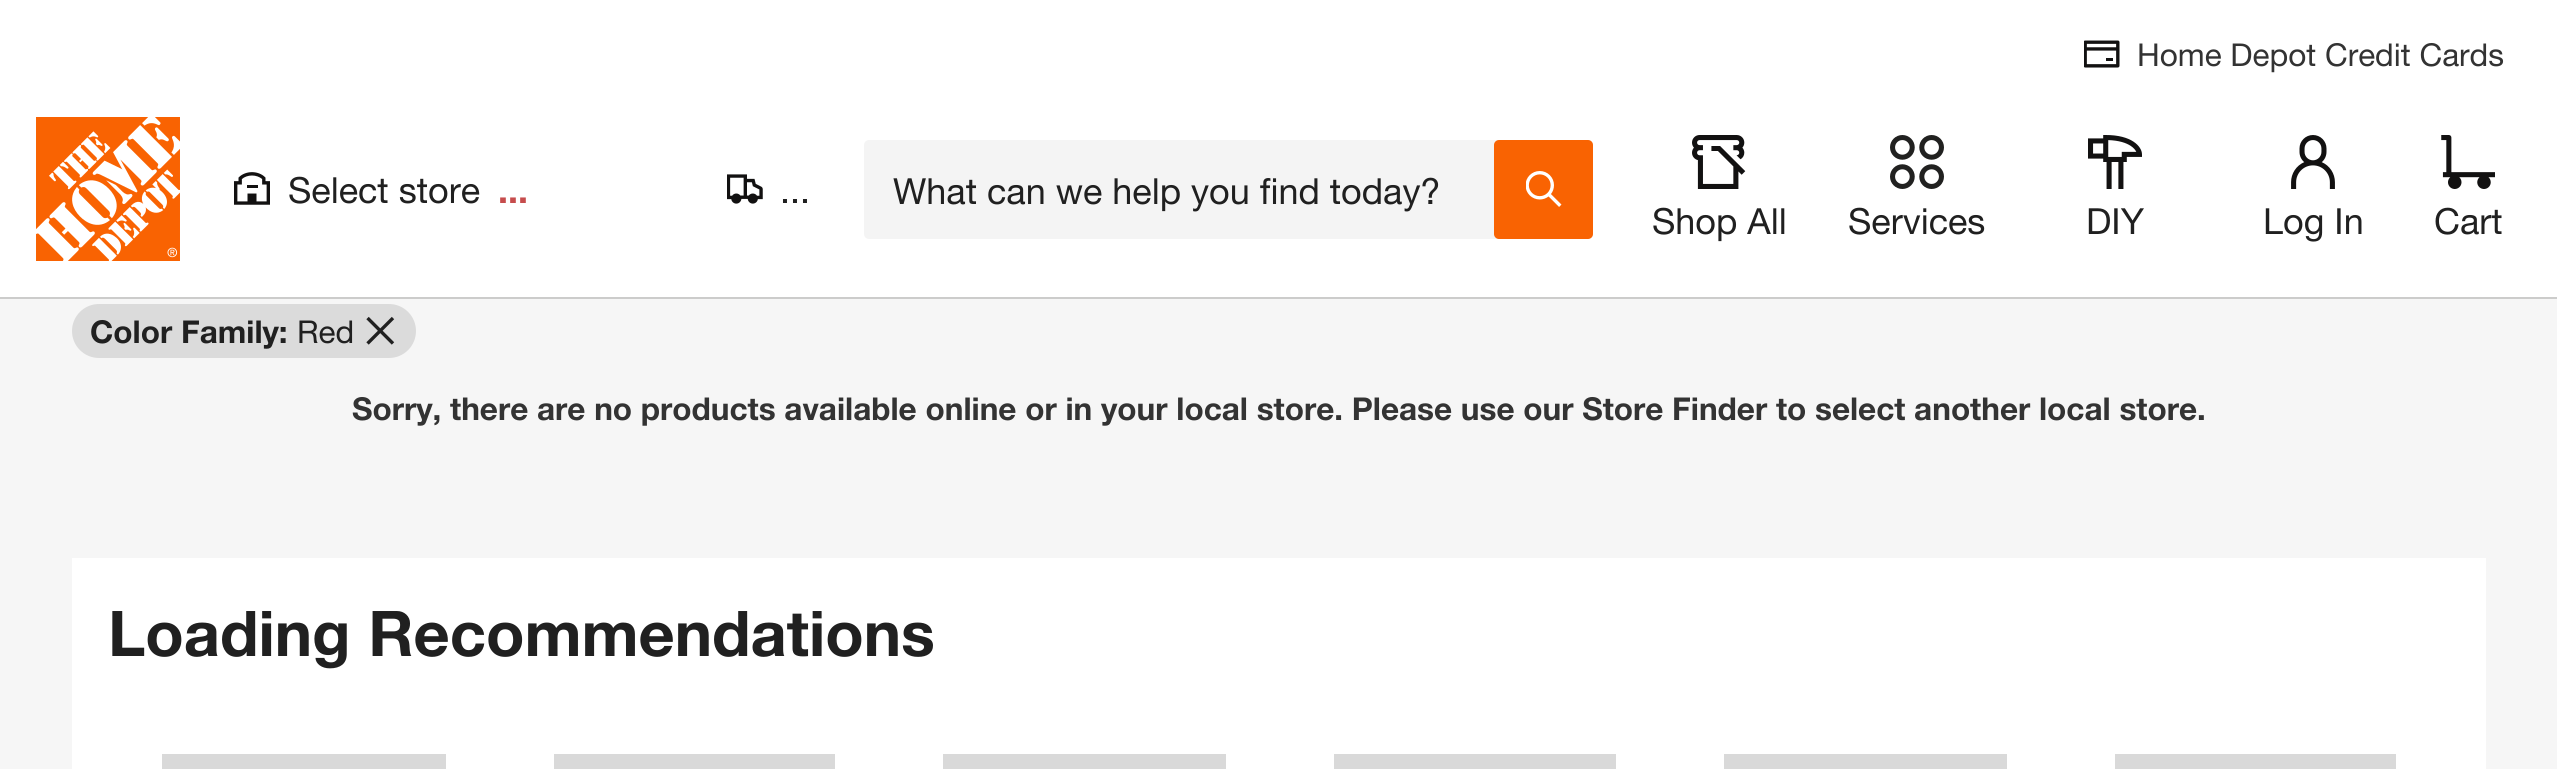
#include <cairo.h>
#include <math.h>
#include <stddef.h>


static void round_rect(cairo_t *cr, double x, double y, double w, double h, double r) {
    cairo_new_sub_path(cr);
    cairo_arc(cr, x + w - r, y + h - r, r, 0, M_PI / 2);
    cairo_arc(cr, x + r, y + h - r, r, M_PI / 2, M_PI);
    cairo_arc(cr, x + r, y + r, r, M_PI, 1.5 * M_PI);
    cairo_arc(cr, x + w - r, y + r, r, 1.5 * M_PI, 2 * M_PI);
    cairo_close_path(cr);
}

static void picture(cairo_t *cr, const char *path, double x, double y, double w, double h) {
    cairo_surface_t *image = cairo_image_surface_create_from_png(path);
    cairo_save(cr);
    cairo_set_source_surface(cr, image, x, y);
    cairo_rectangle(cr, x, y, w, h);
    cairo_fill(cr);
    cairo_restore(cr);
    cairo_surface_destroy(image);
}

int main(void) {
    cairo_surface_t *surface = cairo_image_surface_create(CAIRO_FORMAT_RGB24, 2557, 769);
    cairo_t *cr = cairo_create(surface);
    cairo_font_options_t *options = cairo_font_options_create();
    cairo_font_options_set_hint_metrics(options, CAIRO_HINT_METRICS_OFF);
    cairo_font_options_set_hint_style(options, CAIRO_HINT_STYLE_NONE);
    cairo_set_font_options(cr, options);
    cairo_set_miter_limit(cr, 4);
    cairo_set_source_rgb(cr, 0.961, 0.961, 0.961);
    cairo_paint(cr);
    cairo_set_source_rgb(cr, 1, 1, 1);
    cairo_rectangle(cr, 0, 0, 2557, 297);
    cairo_fill(cr);
    cairo_set_source_rgb(cr, 0.8, 0.8, 0.796);
    cairo_rectangle(cr, 0, 297, 2557, 2);
    cairo_fill(cr);
    picture(cr, "img1.png", 2084, 40, 36, 28);
    cairo_select_font_face(cr, "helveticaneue", CAIRO_FONT_SLANT_NORMAL, CAIRO_FONT_WEIGHT_NORMAL);
    cairo_set_font_size(cr, 31.5);
    cairo_set_source_rgb(cr, 0.2, 0.2, 0.2);
    cairo_move_to(cr, 2137, 66);
    cairo_show_text(cr, "Home Depot Credit Cards");
    picture(cr, "img2.png", 36, 117, 144, 144);
    picture(cr, "img3.png", 234, 172, 36, 33);
    cairo_set_font_size(cr, 36);
    cairo_set_source_rgb(cr, 0.125, 0.125, 0.125);
    cairo_move_to(cr, 288, 203);
    cairo_show_text(cr, "Select store");
    cairo_select_font_face(cr, "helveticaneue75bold", CAIRO_FONT_SLANT_NORMAL, CAIRO_FONT_WEIGHT_BOLD);
    cairo_set_source_rgb(cr, 0.776, 0.298, 0.298);
    cairo_move_to(cr, 498, 203);
    cairo_show_text(cr, "...");
    picture(cr, "img4.png", 727, 174, 36, 30);
    cairo_select_font_face(cr, "helveticaneue", CAIRO_FONT_SLANT_NORMAL, CAIRO_FONT_WEIGHT_NORMAL);
    cairo_set_source_rgb(cr, 0.125, 0.125, 0.125);
    cairo_move_to(cr, 780, 203);
    cairo_show_text(cr, "...");
    cairo_set_source_rgb(cr, 0.957, 0.957, 0.957);
    round_rect(cr, 864, 140, 729, 99, 5);
    cairo_fill(cr);
    cairo_set_source_rgb(cr, 0.125, 0.125, 0.125);
    cairo_move_to(cr, 893, 204);
    cairo_show_text(cr, "What can we help you find today?");
    cairo_set_source_rgb(cr, 0.976, 0.388, 0.008);
    round_rect(cr, 1494, 140, 99, 99, 5);
    cairo_fill(cr);
    picture(cr, "img5.png", 1526, 171, 36, 36);
    picture(cr, "img6.png", 1692, 135, 54, 54);
    cairo_set_source_rgb(cr, 0.125, 0.125, 0.125);
    cairo_move_to(cr, 1652, 234);
    cairo_show_text(cr, "Shop All");
    picture(cr, "img7.png", 1890, 135, 54, 54);
    cairo_move_to(cr, 1848, 234);
    cairo_show_text(cr, "Services");
    picture(cr, "img8.png", 2088, 135, 54, 54);
    cairo_move_to(cr, 2086, 234);
    cairo_show_text(cr, "DIY");
    picture(cr, "img9.png", 2291, 135, 44, 54);
    cairo_move_to(cr, 2263, 234);
    cairo_show_text(cr, "Log In");
    picture(cr, "img10.png", 2441, 135, 54, 54);
    cairo_move_to(cr, 2434, 234);
    cairo_show_text(cr, "Cart");
    cairo_set_source_rgb(cr, 0.859, 0.859, 0.859);
    round_rect(cr, 72, 304, 344, 54, 27);
    cairo_fill(cr);
    cairo_select_font_face(cr, "helveticaneue75bold", CAIRO_FONT_SLANT_NORMAL, CAIRO_FONT_WEIGHT_BOLD);
    cairo_set_font_size(cr, 31.5);
    cairo_set_source_rgb(cr, 0.125, 0.125, 0.125);
    cairo_move_to(cr, 90, 343);
    cairo_show_text(cr, "Color Family:");
    cairo_select_font_face(cr, "helveticaneue", CAIRO_FONT_SLANT_NORMAL, CAIRO_FONT_WEIGHT_NORMAL);
    cairo_move_to(cr, 297, 343);
    cairo_show_text(cr, "Red");
    picture(cr, "img11.png", 366, 316, 29, 29);
    cairo_select_font_face(cr, "helveticaneue75bold", CAIRO_FONT_SLANT_NORMAL, CAIRO_FONT_WEIGHT_BOLD);
    cairo_set_source_rgb(cr, 0.2, 0.2, 0.2);
    cairo_move_to(cr, 352, 420);
    cairo_show_text(cr, "Sorry, there are no products available online or in your local store. Please use our Store Finder to select another local store.");
    cairo_set_source_rgb(cr, 1, 1, 1);
    cairo_rectangle(cr, 72, 558, 2414, 211);
    cairo_fill(cr);
    cairo_set_font_size(cr, 63);
    cairo_set_source_rgb(cr, 0.125, 0.125, 0.125);
    cairo_move_to(cr, 108, 656);
    cairo_show_text(cr, "Loading Recommendations");
    cairo_set_source_rgb(cr, 0.851, 0.851, 0.851);
    cairo_rectangle(cr, 162, 754, 284, 15);
    cairo_fill(cr);
    cairo_rectangle(cr, 554, 754, 281, 15);
    cairo_fill(cr);
    cairo_rectangle(cr, 943, 754, 283, 15);
    cairo_fill(cr);
    cairo_rectangle(cr, 1334, 754, 282, 15);
    cairo_fill(cr);
    cairo_rectangle(cr, 1724, 754, 283, 15);
    cairo_fill(cr);
    cairo_rectangle(cr, 2115, 754, 281, 15);
    cairo_fill(cr);
    cairo_surface_write_to_png(surface, "page.png");
    cairo_font_options_destroy(options);
    cairo_destroy(cr);
    cairo_surface_destroy(surface);
    return 0;
}
